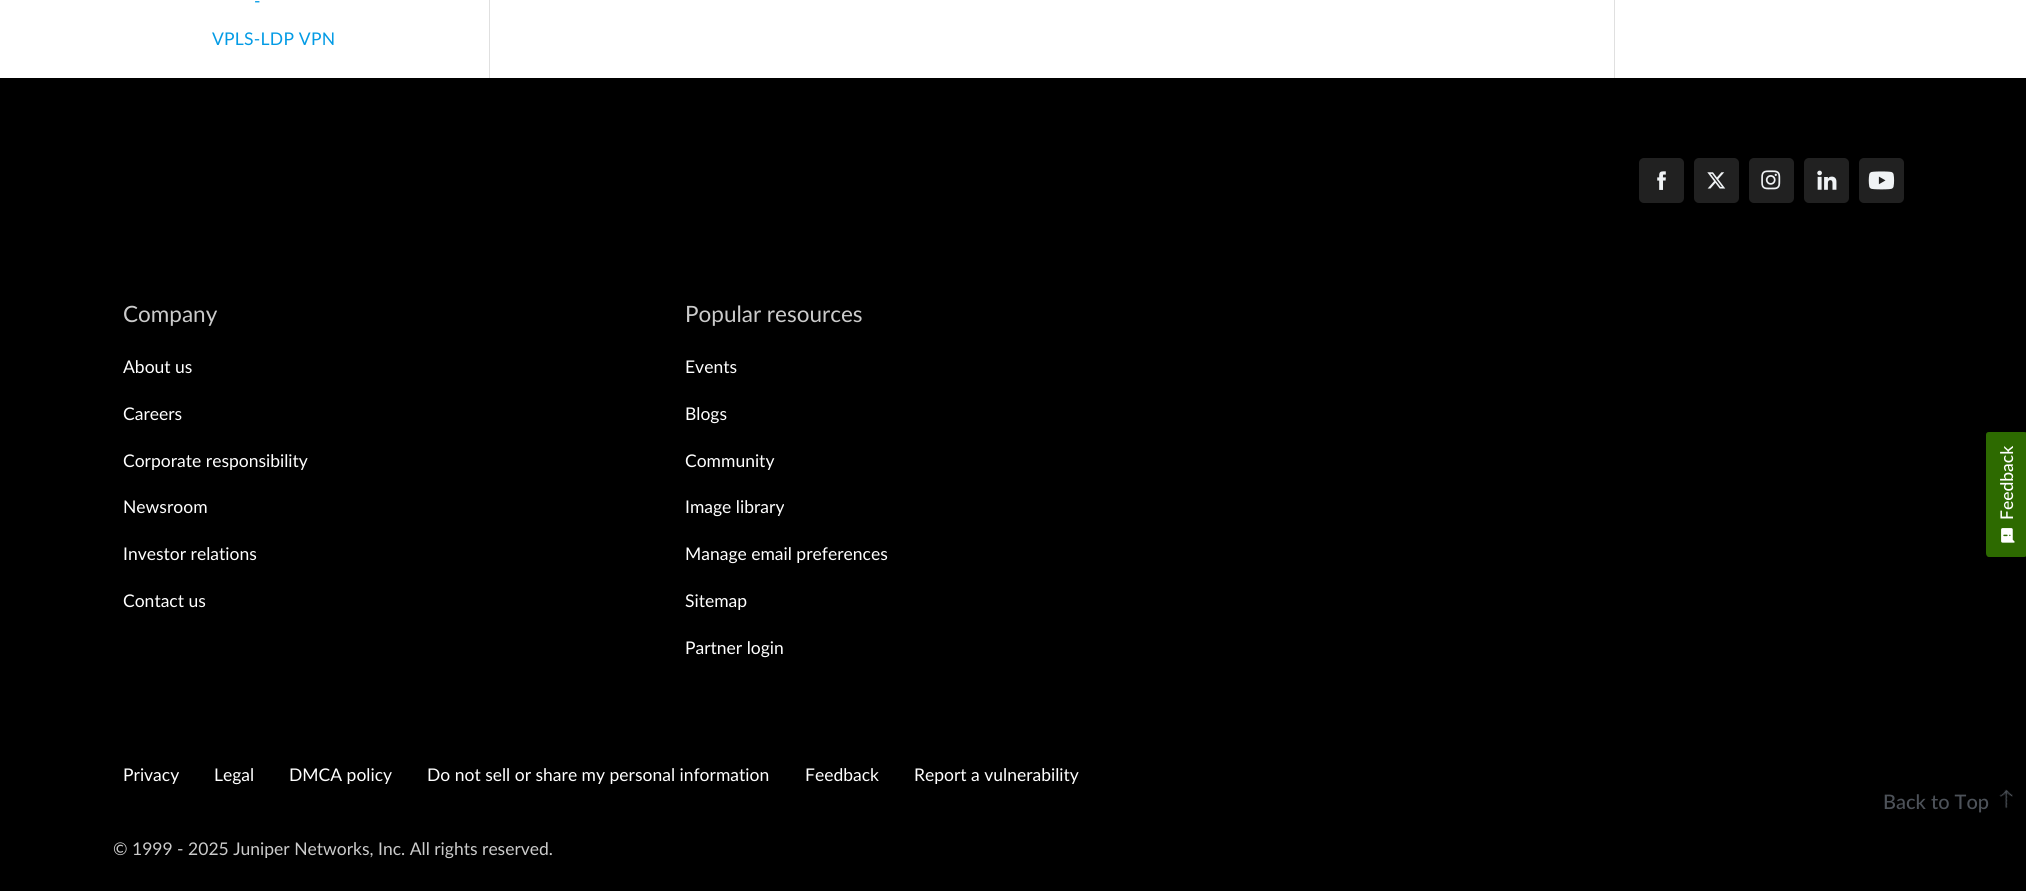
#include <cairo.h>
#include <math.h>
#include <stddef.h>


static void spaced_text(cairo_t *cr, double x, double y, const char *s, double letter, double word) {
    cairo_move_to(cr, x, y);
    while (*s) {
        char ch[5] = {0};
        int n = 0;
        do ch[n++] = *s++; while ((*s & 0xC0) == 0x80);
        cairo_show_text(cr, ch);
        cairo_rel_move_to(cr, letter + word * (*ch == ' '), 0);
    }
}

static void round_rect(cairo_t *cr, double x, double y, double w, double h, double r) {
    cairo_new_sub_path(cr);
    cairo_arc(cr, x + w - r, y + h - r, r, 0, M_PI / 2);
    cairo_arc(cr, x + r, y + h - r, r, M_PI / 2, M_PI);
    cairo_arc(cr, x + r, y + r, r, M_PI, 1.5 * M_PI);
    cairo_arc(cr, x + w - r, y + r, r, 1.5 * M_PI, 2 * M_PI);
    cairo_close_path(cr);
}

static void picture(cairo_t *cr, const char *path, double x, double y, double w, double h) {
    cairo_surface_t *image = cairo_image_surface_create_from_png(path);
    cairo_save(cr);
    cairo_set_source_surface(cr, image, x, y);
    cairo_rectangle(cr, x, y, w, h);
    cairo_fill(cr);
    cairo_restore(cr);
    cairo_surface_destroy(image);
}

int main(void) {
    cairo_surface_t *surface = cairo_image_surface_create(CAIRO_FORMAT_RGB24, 2026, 891);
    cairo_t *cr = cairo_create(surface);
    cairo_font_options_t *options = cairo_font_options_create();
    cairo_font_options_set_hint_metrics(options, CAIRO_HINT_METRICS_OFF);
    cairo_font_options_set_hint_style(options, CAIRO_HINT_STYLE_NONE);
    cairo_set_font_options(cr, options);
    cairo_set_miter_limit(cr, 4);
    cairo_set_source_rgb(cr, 1, 1, 1);
    cairo_paint(cr);
    cairo_set_source_rgb(cr, 0.878, 0.878, 0.878);
    cairo_rectangle(cr, 489, 0, 1, 78);
    cairo_fill(cr);
    cairo_select_font_face(cr, "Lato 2", CAIRO_FONT_SLANT_NORMAL, CAIRO_FONT_WEIGHT_NORMAL);
    cairo_set_font_size(cr, 17.5);
    cairo_set_source_rgb(cr, 0.012, 0.608, 0.898);
    spaced_text(cr, 254, 7, "-", 0.25, 0);
    spaced_text(cr, 212, 45, "VPLS-LDP VPN", 0.25, 0);
    cairo_set_source_rgb(cr, 0.878, 0.878, 0.878);
    cairo_rectangle(cr, 1614, 0, 1, 78);
    cairo_fill(cr);
    cairo_set_source_rgb(cr, 0, 0, 0);
    cairo_rectangle(cr, 0, 78, 2026, 813);
    cairo_fill(cr);
    cairo_set_source_rgb(cr, 0.129, 0.129, 0.129);
    round_rect(cr, 1639, 158, 45, 45, 5);
    cairo_fill(cr);
    picture(cr, "img1.png", 1657, 171, 9, 19);
    round_rect(cr, 1694, 158, 45, 45, 5);
    cairo_fill(cr);
    picture(cr, "img2.png", 1707, 172, 19, 17);
    round_rect(cr, 1749, 158, 45, 45, 5);
    cairo_fill(cr);
    picture(cr, "img3.png", 1761, 170, 20, 20);
    round_rect(cr, 1804, 158, 45, 45, 5);
    cairo_fill(cr);
    picture(cr, "img4.png", 1817, 170, 20, 20);
    round_rect(cr, 1859, 158, 45, 45, 5);
    cairo_fill(cr);
    picture(cr, "img5.png", 1868, 171, 27, 19);
    cairo_select_font_face(cr, "Lato", CAIRO_FONT_SLANT_NORMAL, CAIRO_FONT_WEIGHT_NORMAL);
    cairo_set_font_size(cr, 22.5);
    cairo_set_source_rgb(cr, 0.796, 0.796, 0.796);
    cairo_move_to(cr, 123, 322);
    cairo_show_text(cr, "Company");
    cairo_set_font_size(cr, 17.5);
    cairo_set_source_rgb(cr, 1, 1, 1);
    cairo_move_to(cr, 123, 373);
    cairo_show_text(cr, "About us");
    cairo_move_to(cr, 123, 420);
    cairo_show_text(cr, "Careers");
    cairo_move_to(cr, 123, 467);
    cairo_show_text(cr, "Corporate responsibility");
    cairo_move_to(cr, 123, 513);
    cairo_show_text(cr, "Newsroom");
    cairo_move_to(cr, 123, 560);
    cairo_show_text(cr, "Investor relations");
    cairo_move_to(cr, 123, 607);
    cairo_show_text(cr, "Contact us");
    cairo_set_font_size(cr, 22.5);
    cairo_set_source_rgb(cr, 0.796, 0.796, 0.796);
    cairo_move_to(cr, 685, 322);
    cairo_show_text(cr, "Popular resources");
    cairo_set_font_size(cr, 17.5);
    cairo_set_source_rgb(cr, 1, 1, 1);
    cairo_move_to(cr, 685, 373);
    cairo_show_text(cr, "Events");
    cairo_move_to(cr, 685, 420);
    cairo_show_text(cr, "Blogs");
    cairo_move_to(cr, 685, 467);
    cairo_show_text(cr, "Community");
    cairo_move_to(cr, 685, 513);
    cairo_show_text(cr, "Image library");
    cairo_move_to(cr, 685, 560);
    cairo_show_text(cr, "Manage email preferences");
    cairo_move_to(cr, 685, 607);
    cairo_show_text(cr, "Sitemap");
    cairo_move_to(cr, 685, 654);
    cairo_show_text(cr, "Partner login");
    cairo_move_to(cr, 123, 781);
    cairo_show_text(cr, "Privacy");
    cairo_move_to(cr, 214, 781);
    cairo_show_text(cr, "Legal");
    cairo_move_to(cr, 289, 781);
    cairo_show_text(cr, "DMCA policy");
    cairo_move_to(cr, 427, 781);
    cairo_show_text(cr, "Do not sell or share my personal information");
    cairo_move_to(cr, 805, 781);
    cairo_show_text(cr, "Feedback");
    cairo_move_to(cr, 914, 781);
    cairo_show_text(cr, "Report a vulnerability");
    cairo_set_source_rgb(cr, 0.796, 0.796, 0.796);
    cairo_move_to(cr, 113, 855);
    cairo_show_text(cr, "© 1999 - 2025 Juniper Networks, Inc. All rights reserved.");
    cairo_select_font_face(cr, "Lato Medium", CAIRO_FONT_SLANT_NORMAL, CAIRO_FONT_WEIGHT_NORMAL);
    cairo_set_font_size(cr, 20);
    cairo_set_source_rgb(cr, 0.302, 0.322, 0.349);
    cairo_move_to(cr, 1883, 809);
    cairo_show_text(cr, "Back to Top");
    picture(cr, "img6.png", 1999, 789, 14, 20);
    cairo_set_source_rgb(cr, 0.176, 0.416, 0);
    cairo_new_path(cr);
    cairo_move_to(cr, 1986, 553);
    cairo_line_to(cr, 1986, 435);
    cairo_curve_to(cr, 1986, 433, 1987, 432, 1989, 432);
    cairo_line_to(cr, 2024, 432);
    cairo_curve_to(cr, 2026, 432, 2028, 433, 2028, 435);
    cairo_line_to(cr, 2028, 553);
    cairo_curve_to(cr, 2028, 555, 2026, 557, 2024, 557);
    cairo_line_to(cr, 1989, 557);
    cairo_curve_to(cr, 1987, 557, 1986, 555, 1986, 553);
    cairo_close_path(cr);
    cairo_fill(cr);
    cairo_set_font_size(cr, 17.5);
    cairo_set_source_rgb(cr, 1, 1, 1);
    cairo_save(cr);
    cairo_translate(cr, 2013, 520);
    cairo_rotate(cr, -90 * M_PI / 180);
    cairo_move_to(cr, 0, 0);
    cairo_show_text(cr, "Feedback");
    cairo_restore(cr);
    picture(cr, "img7.png", 2001, 528, 14, 15);
    cairo_surface_write_to_png(surface, "page.png");
    cairo_font_options_destroy(options);
    cairo_destroy(cr);
    cairo_surface_destroy(surface);
    return 0;
}
